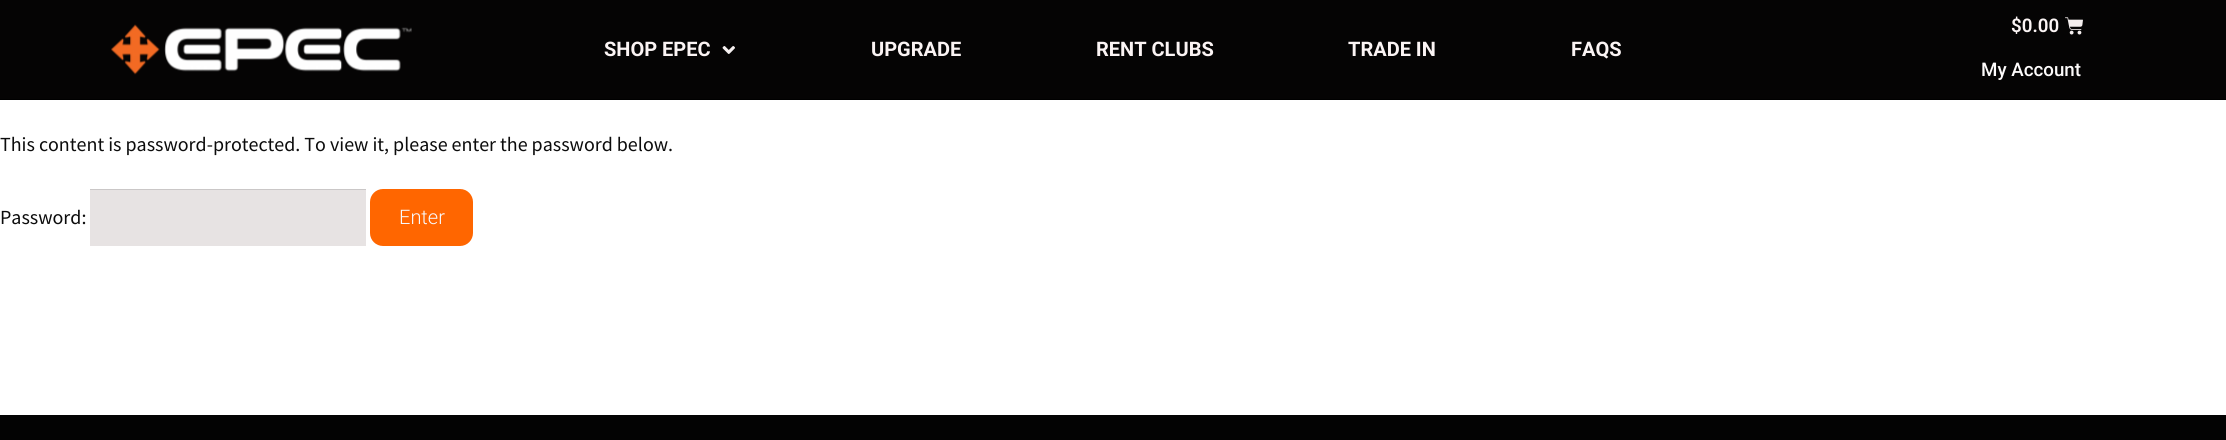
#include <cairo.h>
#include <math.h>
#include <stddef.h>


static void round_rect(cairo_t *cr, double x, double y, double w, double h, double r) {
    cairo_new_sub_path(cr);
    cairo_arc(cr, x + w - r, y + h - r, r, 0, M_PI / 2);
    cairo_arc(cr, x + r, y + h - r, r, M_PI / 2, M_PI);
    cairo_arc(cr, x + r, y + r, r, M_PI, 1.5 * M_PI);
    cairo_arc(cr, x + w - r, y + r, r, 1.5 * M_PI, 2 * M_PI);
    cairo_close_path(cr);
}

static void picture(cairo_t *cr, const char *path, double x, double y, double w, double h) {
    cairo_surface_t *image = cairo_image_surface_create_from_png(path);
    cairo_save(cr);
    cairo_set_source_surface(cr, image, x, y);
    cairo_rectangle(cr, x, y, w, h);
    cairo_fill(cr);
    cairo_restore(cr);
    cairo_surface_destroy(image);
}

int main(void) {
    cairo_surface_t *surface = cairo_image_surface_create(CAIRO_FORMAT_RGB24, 2226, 440);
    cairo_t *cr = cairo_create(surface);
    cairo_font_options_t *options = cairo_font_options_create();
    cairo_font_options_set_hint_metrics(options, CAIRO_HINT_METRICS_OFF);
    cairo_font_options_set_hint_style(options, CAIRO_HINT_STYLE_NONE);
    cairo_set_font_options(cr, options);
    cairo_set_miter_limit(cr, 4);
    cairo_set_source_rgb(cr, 1, 1, 1);
    cairo_paint(cr);
    cairo_set_source_rgb(cr, 0.02, 0.016, 0.016);
    cairo_rectangle(cr, 0, 0, 2226, 99);
    cairo_fill(cr);
    cairo_set_source_rgb(cr, 0, 0, 0);
    cairo_rectangle(cr, 0, 99, 2226, 1);
    cairo_fill(cr);
    picture(cr, "img1.png", 111, 24, 301, 51);
    cairo_select_font_face(cr, "Roboto", CAIRO_FONT_SLANT_NORMAL, CAIRO_FONT_WEIGHT_BOLD);
    cairo_set_font_size(cr, 20);
    cairo_set_source_rgb(cr, 0.984, 0.957, 0.957);
    cairo_move_to(cr, 604, 56);
    cairo_show_text(cr, "SHOP EPEC");
    picture(cr, "img2.png", 722, 46, 13, 8);
    cairo_move_to(cr, 871, 56);
    cairo_show_text(cr, "UPGRADE");
    cairo_move_to(cr, 1096, 56);
    cairo_show_text(cr, "RENT CLUBS");
    cairo_move_to(cr, 1348, 56);
    cairo_show_text(cr, "TRADE IN");
    cairo_move_to(cr, 1571, 56);
    cairo_show_text(cr, "FAQS");
    cairo_select_font_face(cr, "Roboto SemiBold", CAIRO_FONT_SLANT_NORMAL, CAIRO_FONT_WEIGHT_NORMAL);
    cairo_set_font_size(cr, 18.75);
    cairo_move_to(cr, 2011, 32);
    cairo_show_text(cr, "$0.00");
    picture(cr, "img3.png", 2065, 17, 18, 18);
    cairo_select_font_face(cr, "Roboto Medium", CAIRO_FONT_SLANT_NORMAL, CAIRO_FONT_WEIGHT_NORMAL);
    cairo_set_source_rgb(cr, 0.992, 0.984, 0.984);
    cairo_move_to(cr, 1981, 76);
    cairo_show_text(cr, "My Account");
    cairo_select_font_face(cr, "Source Sans Pro", CAIRO_FONT_SLANT_NORMAL, CAIRO_FONT_WEIGHT_NORMAL);
    cairo_set_font_size(cr, 20);
    cairo_set_source_rgb(cr, 0.047, 0.047, 0.047);
    cairo_move_to(cr, 0, 151);
    cairo_show_text(cr, "This content is password-protected. To view it, please enter the password below.");
    cairo_move_to(cr, 0, 224);
    cairo_show_text(cr, "Password:");
    cairo_set_source_rgb(cr, 0.906, 0.89, 0.89);
    cairo_rectangle(cr, 90, 190, 276, 56);
    cairo_fill(cr);
    cairo_set_source_rgb(cr, 0.792, 0.78, 0.78);
    cairo_rectangle(cr, 90, 189, 276, 1);
    cairo_fill(cr);
    cairo_set_source_rgb(cr, 1, 0.4, 0);
    round_rect(cr, 370, 189, 103, 57, 13);
    cairo_fill(cr);
    cairo_select_font_face(cr, "Roboto Light", CAIRO_FONT_SLANT_NORMAL, CAIRO_FONT_WEIGHT_NORMAL);
    cairo_set_source_rgb(cr, 0.969, 0.976, 0.988);
    cairo_move_to(cr, 399, 224);
    cairo_show_text(cr, "Enter");
    cairo_set_source_rgb(cr, 0.012, 0.012, 0.012);
    cairo_rectangle(cr, 0, 415, 2226, 25);
    cairo_fill(cr);
    cairo_surface_write_to_png(surface, "page.png");
    cairo_font_options_destroy(options);
    cairo_destroy(cr);
    cairo_surface_destroy(surface);
    return 0;
}
